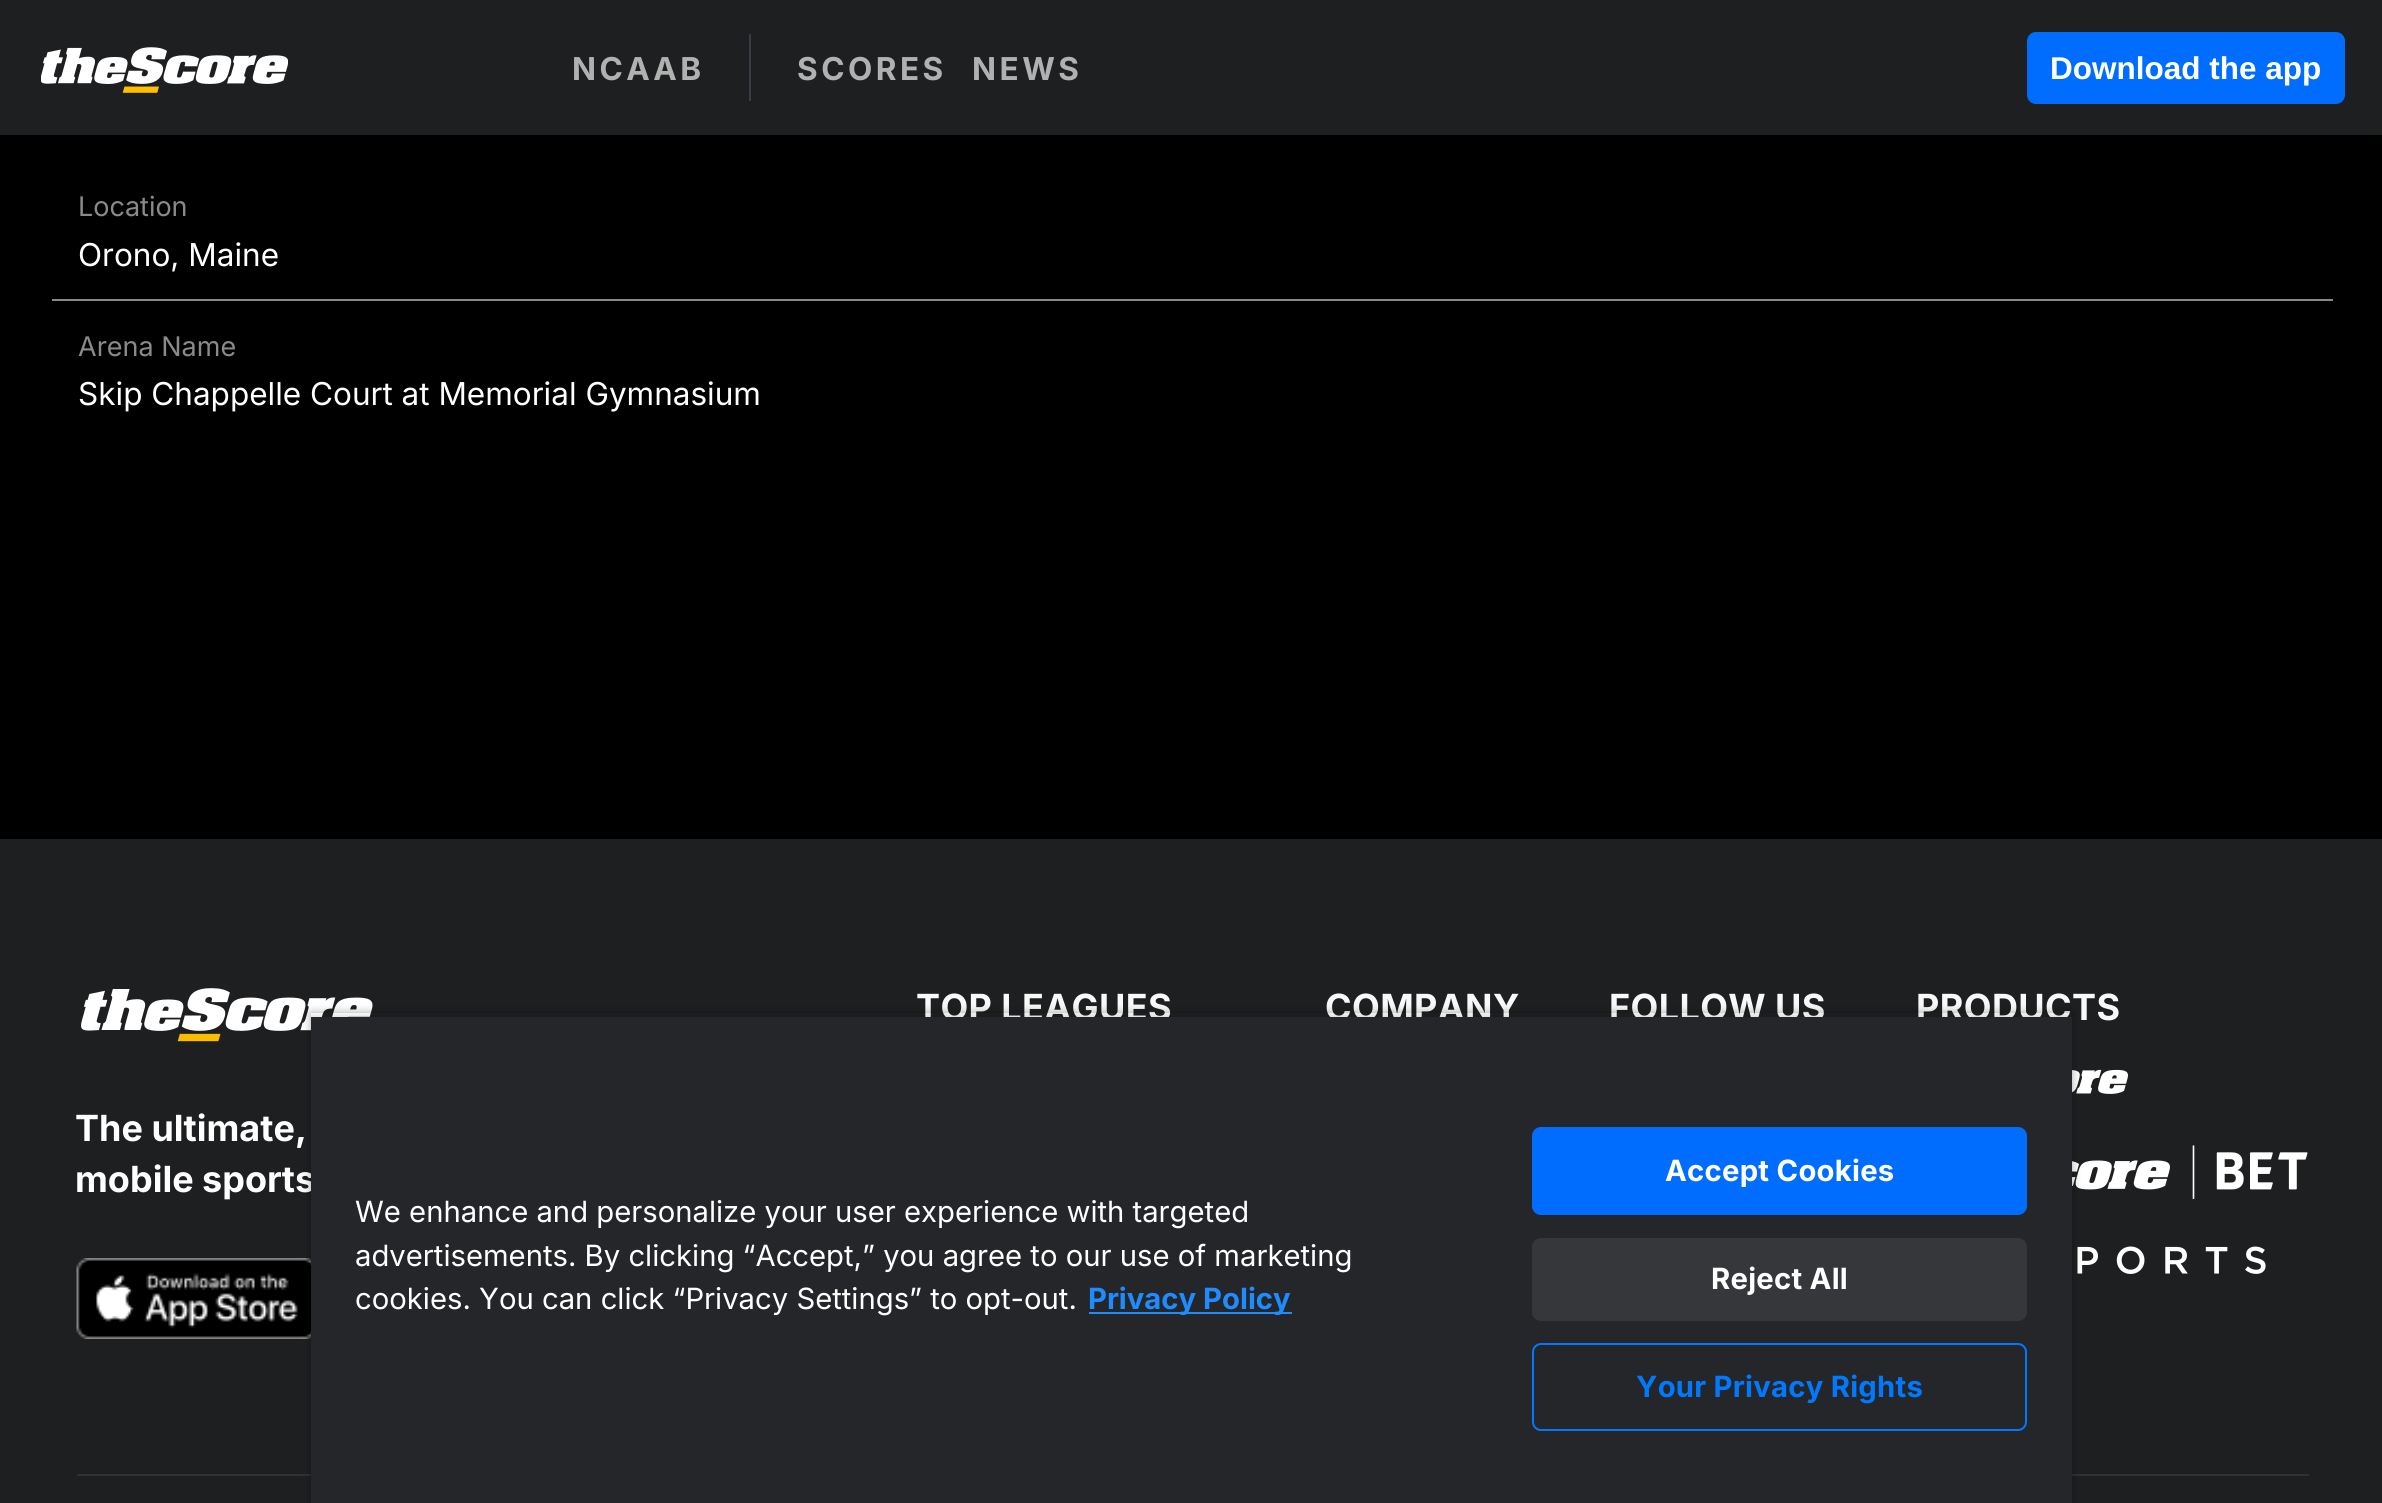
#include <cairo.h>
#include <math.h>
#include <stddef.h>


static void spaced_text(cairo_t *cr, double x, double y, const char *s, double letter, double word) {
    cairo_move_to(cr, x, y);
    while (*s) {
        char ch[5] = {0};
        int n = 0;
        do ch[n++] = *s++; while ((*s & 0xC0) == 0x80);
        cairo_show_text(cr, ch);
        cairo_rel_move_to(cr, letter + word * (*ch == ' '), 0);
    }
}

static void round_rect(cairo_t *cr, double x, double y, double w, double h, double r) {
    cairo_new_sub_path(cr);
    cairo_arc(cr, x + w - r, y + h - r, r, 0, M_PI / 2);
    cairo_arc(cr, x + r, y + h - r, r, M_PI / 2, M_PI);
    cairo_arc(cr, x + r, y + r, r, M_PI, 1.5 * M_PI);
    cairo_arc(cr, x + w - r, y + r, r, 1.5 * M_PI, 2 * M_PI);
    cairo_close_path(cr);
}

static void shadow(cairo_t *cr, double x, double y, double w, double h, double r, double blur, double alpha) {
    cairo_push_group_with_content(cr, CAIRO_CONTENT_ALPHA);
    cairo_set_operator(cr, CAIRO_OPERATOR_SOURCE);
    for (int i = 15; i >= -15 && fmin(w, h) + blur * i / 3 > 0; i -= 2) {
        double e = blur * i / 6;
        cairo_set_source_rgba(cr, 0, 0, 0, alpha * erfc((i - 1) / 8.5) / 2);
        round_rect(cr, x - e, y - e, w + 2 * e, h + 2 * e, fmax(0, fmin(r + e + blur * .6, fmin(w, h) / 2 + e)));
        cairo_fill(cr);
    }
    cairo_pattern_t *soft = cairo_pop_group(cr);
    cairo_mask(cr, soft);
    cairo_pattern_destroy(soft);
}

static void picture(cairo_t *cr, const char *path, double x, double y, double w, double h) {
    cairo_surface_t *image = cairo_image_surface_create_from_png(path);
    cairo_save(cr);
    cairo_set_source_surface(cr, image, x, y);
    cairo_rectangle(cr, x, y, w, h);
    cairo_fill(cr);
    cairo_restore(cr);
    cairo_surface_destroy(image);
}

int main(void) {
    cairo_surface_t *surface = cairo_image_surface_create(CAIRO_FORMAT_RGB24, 2382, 1503);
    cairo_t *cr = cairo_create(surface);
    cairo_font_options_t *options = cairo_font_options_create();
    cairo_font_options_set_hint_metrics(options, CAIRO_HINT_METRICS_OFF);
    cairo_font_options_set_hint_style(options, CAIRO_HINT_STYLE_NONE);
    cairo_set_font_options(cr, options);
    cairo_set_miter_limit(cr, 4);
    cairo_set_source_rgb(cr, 0, 0, 0);
    cairo_paint(cr);
    cairo_set_source_rgb(cr, 0.118, 0.122, 0.129);
    cairo_rectangle(cr, 0, 0, 2382, 135);
    cairo_fill(cr);
    picture(cr, "img1.png", 41, 47, 247, 46);
    cairo_set_source_rgb(cr, 0.224, 0.235, 0.259);
    cairo_rectangle(cr, 749, 34, 2, 67);
    cairo_fill(cr);
    cairo_select_font_face(cr, "Inter", CAIRO_FONT_SLANT_NORMAL, CAIRO_FONT_WEIGHT_BOLD);
    cairo_set_font_size(cr, 31.5);
    cairo_set_source_rgb(cr, 0.69, 0.694, 0.694);
    spaced_text(cr, 572, 80, "NCAAB", 3.5, 0);
    spaced_text(cr, 797, 80, "SCORES", 3.5, 0);
    spaced_text(cr, 972, 80, "NEWS", 3.5, 0);
    cairo_set_source_rgb(cr, 0, 0.427, 1);
    round_rect(cr, 2027, 32, 318, 72, 9);
    cairo_fill(cr);
    cairo_select_font_face(cr, "Liberation Sans", CAIRO_FONT_SLANT_NORMAL, CAIRO_FONT_WEIGHT_BOLD);
    cairo_set_source_rgb(cr, 1, 1, 1);
    cairo_move_to(cr, 2050, 79);
    cairo_show_text(cr, "Download the app");
    cairo_set_source_rgb(cr, 0.533, 0.533, 0.533);
    cairo_rectangle(cr, 52, 299, 2281, 2);
    cairo_fill(cr);
    cairo_select_font_face(cr, "Inter", CAIRO_FONT_SLANT_NORMAL, CAIRO_FONT_WEIGHT_NORMAL);
    cairo_set_font_size(cr, 27);
    cairo_set_source_rgb(cr, 0.541, 0.541, 0.541);
    cairo_move_to(cr, 78, 216);
    cairo_show_text(cr, "Location");
    cairo_set_font_size(cr, 31.5);
    cairo_set_source_rgb(cr, 1, 1, 1);
    cairo_move_to(cr, 78, 266);
    cairo_show_text(cr, "Orono, Maine");
    cairo_set_font_size(cr, 27);
    cairo_set_source_rgb(cr, 0.541, 0.541, 0.541);
    cairo_move_to(cr, 78, 356);
    cairo_show_text(cr, "Arena Name");
    cairo_set_font_size(cr, 31.5);
    cairo_set_source_rgb(cr, 1, 1, 1);
    cairo_move_to(cr, 78, 405);
    cairo_show_text(cr, "Skip Chappelle Court at Memorial Gymnasium");
    cairo_set_source_rgb(cr, 0.118, 0.122, 0.129);
    cairo_rectangle(cr, 0, 839, 2382, 664);
    cairo_fill(cr);
    cairo_select_font_face(cr, "Inter", CAIRO_FONT_SLANT_NORMAL, CAIRO_FONT_WEIGHT_BOLD);
    cairo_set_font_size(cr, 36);
    cairo_set_source_rgb(cr, 0.976, 0.976, 0.976);
    spaced_text(cr, 916, 1020, "TOP LEAGUES", 0.4, 0);
    spaced_text(cr, 1325, 1020, "COMPANY", 0.4, 0);
    spaced_text(cr, 1609, 1020, "FOLLOW US", 0.4, 0);
    spaced_text(cr, 1916, 1020, "PRODUCTS", 0.4, 0);
    picture(cr, "img2.png", 2072, 1069, 56, 25);
    picture(cr, "img3.png", 2072, 1145, 236, 54);
    picture(cr, "img4.png", 2077, 1246, 189, 28);
    picture(cr, "img5.png", 81, 988, 292, 54);
    cairo_set_source_rgb(cr, 1, 1, 1);
    cairo_move_to(cr, 75, 1141);
    cairo_show_text(cr, "The ultimate,");
    cairo_move_to(cr, 75, 1192);
    cairo_show_text(cr, "mobile sports");
    picture(cr, "img6.png", 76, 1258, 235, 81);
    cairo_set_source_rgb(cr, 0.188, 0.192, 0.2);
    cairo_rectangle(cr, 77, 1474, 2232, 2);
    cairo_fill(cr);
    cairo_save(cr);
    cairo_set_fill_rule(cr, CAIRO_FILL_RULE_EVEN_ODD);
    cairo_new_path(cr);
    cairo_move_to(cr, 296, 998);
    cairo_line_to(cr, 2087, 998);
    cairo_line_to(cr, 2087, 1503);
    cairo_line_to(cr, 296, 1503);
    cairo_close_path(cr);
    cairo_move_to(cr, 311, 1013);
    cairo_line_to(cr, 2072, 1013);
    cairo_line_to(cr, 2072, 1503);
    cairo_line_to(cr, 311, 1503);
    cairo_close_path(cr);
    cairo_clip(cr);
    cairo_set_source_rgb(cr, 0, 0, 0);
    shadow(cr, 311, 1013, 1761, 490, 0, 4.5, 0.35);
    cairo_restore(cr);
    cairo_save(cr);
    cairo_rectangle(cr, 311, 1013, 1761, 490);
    cairo_clip(cr);
    cairo_set_source_rgb(cr, 0, 0, 0);
    shadow(cr, 311, 1017, 1761, 486, 0, 4.5, 0.2);
    cairo_restore(cr);
    cairo_set_source_rgb(cr, 0.141, 0.149, 0.161);
    cairo_rectangle(cr, 311, 1017, 1761, 486);
    cairo_fill(cr);
    cairo_select_font_face(cr, "Inter", CAIRO_FONT_SLANT_NORMAL, CAIRO_FONT_WEIGHT_NORMAL);
    cairo_set_font_size(cr, 29.25);
    cairo_set_source_rgb(cr, 1, 1, 1);
    cairo_move_to(cr, 355, 1222);
    cairo_show_text(cr, "We enhance and personalize your user experience with targeted");
    cairo_move_to(cr, 355, 1266);
    cairo_show_text(cr, "advertisements. By clicking “Accept,” you agree to our use of marketing");
    cairo_move_to(cr, 355, 1309);
    cairo_show_text(cr, "cookies. You can click “Privacy Settings” to opt-out.");
    cairo_set_source_rgb(cr, 0.118, 0.549, 1);
    cairo_rectangle(cr, 1089, 1312, 203, 2);
    cairo_fill(cr);
    cairo_select_font_face(cr, "Inter", CAIRO_FONT_SLANT_NORMAL, CAIRO_FONT_WEIGHT_BOLD);
    cairo_move_to(cr, 1088, 1309);
    cairo_show_text(cr, "Privacy Policy");
    cairo_set_source_rgb(cr, 0, 0.427, 1);
    round_rect(cr, 1533, 1128, 493, 86, 8);
    cairo_fill_preserve(cr);
    cairo_stroke(cr);
    cairo_set_source_rgb(cr, 1, 1, 1);
    spaced_text(cr, 1665, 1181, "Accept Cookies", 0.25, 0);
    cairo_set_source_rgb(cr, 0.208, 0.216, 0.227);
    round_rect(cr, 1532, 1238, 495, 83, 9);
    cairo_fill(cr);
    cairo_set_source_rgb(cr, 1, 1, 1);
    spaced_text(cr, 1711, 1289, "Reject All", 0.25, 0);
    round_rect(cr, 1533, 1344, 493, 86, 8);
    cairo_set_source_rgb(cr, 0, 0.475, 1);
    cairo_stroke(cr);
    spaced_text(cr, 1636, 1397, "Your Privacy Rights", 0.25, 0);
    cairo_surface_write_to_png(surface, "page.png");
    cairo_font_options_destroy(options);
    cairo_destroy(cr);
    cairo_surface_destroy(surface);
    return 0;
}
